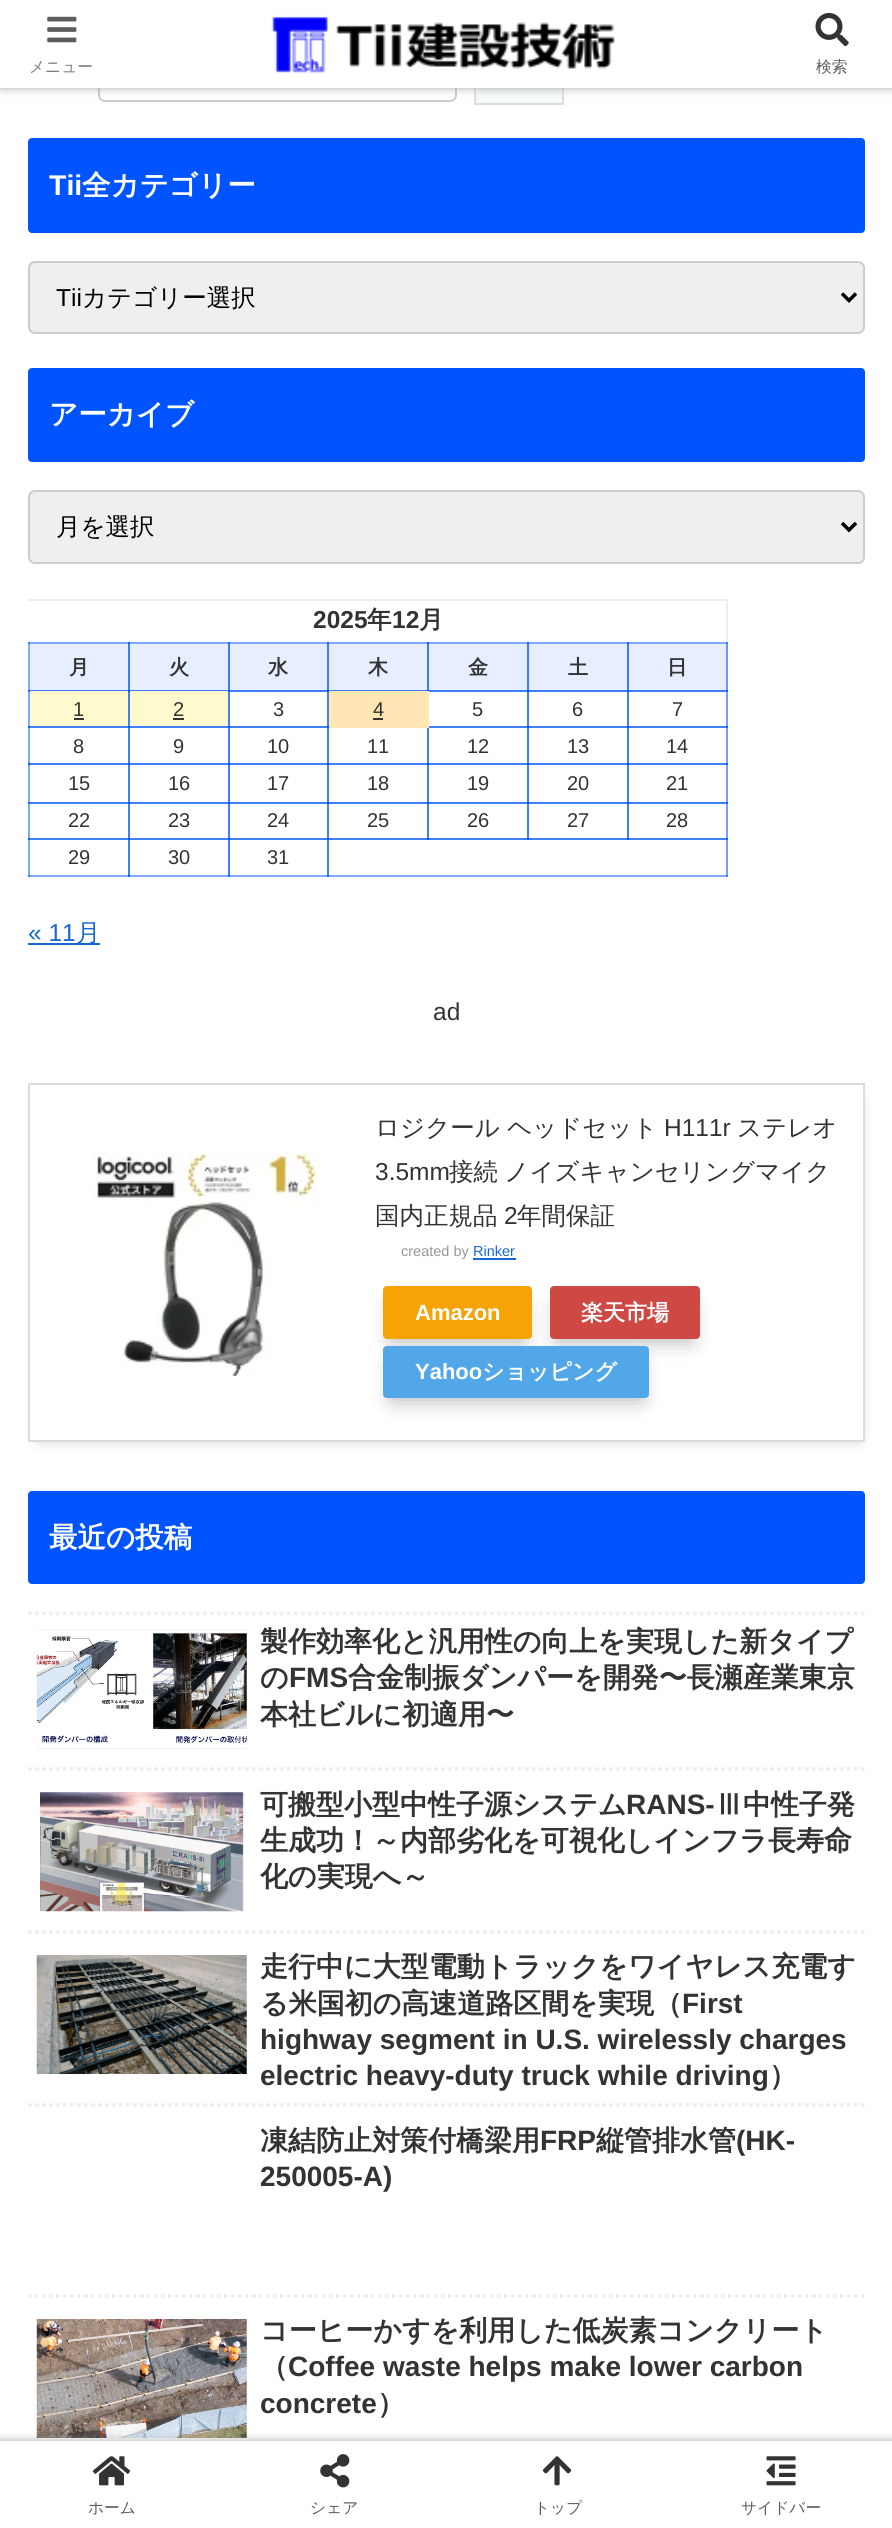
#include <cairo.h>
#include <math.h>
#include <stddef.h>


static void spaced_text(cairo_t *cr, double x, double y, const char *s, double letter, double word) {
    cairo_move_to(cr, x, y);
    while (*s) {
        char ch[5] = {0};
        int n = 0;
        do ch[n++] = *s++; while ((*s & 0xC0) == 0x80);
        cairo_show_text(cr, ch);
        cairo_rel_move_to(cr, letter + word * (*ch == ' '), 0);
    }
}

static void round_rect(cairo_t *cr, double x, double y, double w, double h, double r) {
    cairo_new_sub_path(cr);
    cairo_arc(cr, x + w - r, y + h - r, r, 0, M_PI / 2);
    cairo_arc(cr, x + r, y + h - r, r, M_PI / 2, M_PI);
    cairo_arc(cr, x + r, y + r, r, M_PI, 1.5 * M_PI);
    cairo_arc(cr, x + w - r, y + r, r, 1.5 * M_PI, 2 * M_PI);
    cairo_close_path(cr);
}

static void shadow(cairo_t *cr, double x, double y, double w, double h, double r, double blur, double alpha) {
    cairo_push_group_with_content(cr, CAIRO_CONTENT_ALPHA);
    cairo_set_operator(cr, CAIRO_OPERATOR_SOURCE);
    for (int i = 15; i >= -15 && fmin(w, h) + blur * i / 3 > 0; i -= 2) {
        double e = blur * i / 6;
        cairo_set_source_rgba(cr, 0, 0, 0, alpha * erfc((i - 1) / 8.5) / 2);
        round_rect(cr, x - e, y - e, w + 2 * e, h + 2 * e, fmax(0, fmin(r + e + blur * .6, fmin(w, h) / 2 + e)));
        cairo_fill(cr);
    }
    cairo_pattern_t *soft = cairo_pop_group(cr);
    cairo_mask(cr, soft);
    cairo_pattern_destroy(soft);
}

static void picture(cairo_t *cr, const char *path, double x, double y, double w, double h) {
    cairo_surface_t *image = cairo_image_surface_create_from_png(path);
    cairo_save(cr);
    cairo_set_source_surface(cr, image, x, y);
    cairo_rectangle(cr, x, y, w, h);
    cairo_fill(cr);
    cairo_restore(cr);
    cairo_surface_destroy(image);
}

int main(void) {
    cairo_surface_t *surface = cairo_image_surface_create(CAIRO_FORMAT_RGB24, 892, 2528);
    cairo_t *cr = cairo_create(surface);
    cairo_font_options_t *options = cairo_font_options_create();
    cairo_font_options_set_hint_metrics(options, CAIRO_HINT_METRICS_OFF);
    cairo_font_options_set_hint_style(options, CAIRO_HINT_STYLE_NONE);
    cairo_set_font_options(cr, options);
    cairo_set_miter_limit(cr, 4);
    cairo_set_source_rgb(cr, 1, 1, 1);
    cairo_paint(cr);
    round_rect(cr, 99, 33, 357, 68, 6);
    cairo_set_source_rgb(cr, 0.8, 0.8, 0.8);
    cairo_stroke(cr);
    cairo_set_source_rgb(cr, 0.961, 0.973, 0.98);
    cairo_rectangle(cr, 476, 88, 86, 15);
    cairo_fill(cr);
    cairo_rectangle(cr, 475, 33, 88, 71);
    cairo_set_source_rgb(cr, 0.867, 0.867, 0.867);
    cairo_stroke(cr);
    cairo_set_source_rgb(cr, 0.663, 0.663, 0.663);
    shadow(cr, 0, 0, 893, 88, 0, 4.5, 1);
    cairo_set_source_rgb(cr, 1, 1, 1);
    cairo_rectangle(cr, 0, 0, 892, 88);
    cairo_fill(cr);
    picture(cr, "img1.png", 47, 16, 30, 27);
    cairo_select_font_face(cr, "WenQuanYi Zen Hei Medium", CAIRO_FONT_SLANT_NORMAL, CAIRO_FONT_WEIGHT_NORMAL);
    cairo_set_font_size(cr, 15.75);
    cairo_set_source_rgb(cr, 0.486, 0.486, 0.486);
    cairo_move_to(cr, 29, 72);
    cairo_show_text(cr, "メニュー");
    picture(cr, "img2.png", 271, 15, 344, 59);
    picture(cr, "img3.png", 815, 12, 34, 35);
    cairo_set_source_rgb(cr, 0.361, 0.361, 0.361);
    cairo_move_to(cr, 816, 72);
    cairo_show_text(cr, "検索");
    cairo_set_source_rgb(cr, 0.902, 0.933, 1);
    cairo_rectangle(cr, 629, 644, 97, 46);
    cairo_fill(cr);
    cairo_rectangle(cr, 529, 644, 98, 46);
    cairo_fill(cr);
    cairo_rectangle(cr, 429, 644, 98, 46);
    cairo_fill(cr);
    cairo_rectangle(cr, 329, 644, 98, 46);
    cairo_fill(cr);
    cairo_rectangle(cr, 230, 644, 97, 46);
    cairo_fill(cr);
    cairo_rectangle(cr, 130, 644, 98, 46);
    cairo_fill(cr);
    cairo_rectangle(cr, 30, 644, 98, 46);
    cairo_fill(cr);
    cairo_set_source_rgb(cr, 0.502, 0.667, 1);
    cairo_rectangle(cr, 28, 642, 2, 235);
    cairo_fill(cr);
    cairo_rectangle(cr, 28, 642, 700, 2);
    cairo_fill(cr);
    cairo_set_source_rgb(cr, 0.251, 0.498, 1);
    cairo_rectangle(cr, 28, 642, 2, 2);
    cairo_fill(cr);
    cairo_set_source_rgb(cr, 0.227, 0.482, 1);
    cairo_rectangle(cr, 128, 644, 2, 47);
    cairo_fill(cr);
    cairo_set_source_rgb(cr, 0.063, 0.373, 1);
    cairo_rectangle(cr, 128, 642, 2, 2);
    cairo_fill(cr);
    cairo_set_source_rgb(cr, 0.227, 0.482, 1);
    cairo_rectangle(cr, 228, 644, 2, 47);
    cairo_fill(cr);
    cairo_set_source_rgb(cr, 0.125, 0.416, 1);
    cairo_rectangle(cr, 228, 642, 2, 2);
    cairo_fill(cr);
    cairo_set_source_rgb(cr, 0.063, 0.373, 1);
    cairo_rectangle(cr, 228, 642, 1, 2);
    cairo_fill(cr);
    cairo_set_source_rgb(cr, 0.227, 0.482, 1);
    cairo_rectangle(cr, 327, 644, 2, 47);
    cairo_fill(cr);
    cairo_set_source_rgb(cr, 0.063, 0.373, 1);
    cairo_rectangle(cr, 327, 642, 2, 2);
    cairo_fill(cr);
    cairo_set_source_rgb(cr, 0.227, 0.482, 1);
    cairo_rectangle(cr, 427, 644, 2, 47);
    cairo_fill(cr);
    cairo_set_source_rgb(cr, 0.063, 0.373, 1);
    cairo_rectangle(cr, 427, 642, 2, 2);
    cairo_fill(cr);
    cairo_set_source_rgb(cr, 0.227, 0.482, 1);
    cairo_rectangle(cr, 527, 644, 2, 47);
    cairo_fill(cr);
    cairo_set_source_rgb(cr, 0.063, 0.373, 1);
    cairo_rectangle(cr, 527, 642, 2, 2);
    cairo_fill(cr);
    cairo_set_source_rgb(cr, 0.227, 0.482, 1);
    cairo_rectangle(cr, 627, 644, 2, 47);
    cairo_fill(cr);
    cairo_set_source_rgb(cr, 0.125, 0.416, 1);
    cairo_rectangle(cr, 627, 642, 2, 2);
    cairo_fill(cr);
    cairo_set_source_rgb(cr, 0.063, 0.373, 1);
    cairo_rectangle(cr, 627, 642, 1, 2);
    cairo_fill(cr);
    cairo_set_source_rgb(cr, 0.227, 0.482, 1);
    cairo_rectangle(cr, 30, 690, 199, 1);
    cairo_fill(cr);
    cairo_set_source_rgb(cr, 0.125, 0.416, 1);
    cairo_rectangle(cr, 28, 691, 2, 1);
    cairo_fill(cr);
    cairo_set_source_rgb(cr, 0.063, 0.373, 1);
    cairo_rectangle(cr, 28, 690, 2, 1);
    cairo_fill(cr);
    cairo_set_source_rgb(cr, 0.251, 0.498, 1);
    cairo_rectangle(cr, 128, 690, 2, 38);
    cairo_fill(cr);
    cairo_set_source_rgb(cr, 0.016, 0.341, 1);
    cairo_rectangle(cr, 128, 691, 2, 1);
    cairo_fill(cr);
    cairo_set_source_rgb(cr, 0.004, 0.333, 1);
    cairo_rectangle(cr, 128, 690, 2, 1);
    cairo_fill(cr);
    cairo_set_source_rgb(cr, 0.251, 0.498, 1);
    cairo_rectangle(cr, 228, 690, 2, 38);
    cairo_fill(cr);
    cairo_rectangle(cr, 228, 691, 101, 1);
    cairo_fill(cr);
    cairo_set_source_rgb(cr, 0.227, 0.482, 1);
    cairo_rectangle(cr, 229, 690, 399, 1);
    cairo_fill(cr);
    cairo_set_source_rgb(cr, 0.063, 0.373, 1);
    cairo_rectangle(cr, 228, 691, 2, 1);
    cairo_fill(cr);
    cairo_set_source_rgb(cr, 0.016, 0.341, 1);
    cairo_rectangle(cr, 229, 690, 1, 1);
    cairo_fill(cr);
    cairo_rectangle(cr, 228, 690, 1, 2);
    cairo_fill(cr);
    cairo_set_source_rgb(cr, 0.004, 0.333, 1);
    cairo_rectangle(cr, 228, 690, 1, 1);
    cairo_fill(cr);
    cairo_set_source_rgb(cr, 0.251, 0.498, 1);
    cairo_rectangle(cr, 327, 690, 2, 38);
    cairo_fill(cr);
    cairo_set_source_rgb(cr, 0.016, 0.341, 1);
    cairo_rectangle(cr, 327, 691, 2, 1);
    cairo_fill(cr);
    cairo_set_source_rgb(cr, 0.004, 0.333, 1);
    cairo_rectangle(cr, 327, 690, 2, 1);
    cairo_fill(cr);
    cairo_set_source_rgb(cr, 0.251, 0.498, 1);
    cairo_rectangle(cr, 427, 691, 102, 1);
    cairo_fill(cr);
    cairo_set_source_rgb(cr, 0.004, 0.333, 1);
    cairo_rectangle(cr, 427, 690, 2, 1);
    cairo_fill(cr);
    cairo_set_source_rgb(cr, 0.251, 0.498, 1);
    cairo_rectangle(cr, 527, 690, 2, 38);
    cairo_fill(cr);
    cairo_rectangle(cr, 527, 691, 101, 1);
    cairo_fill(cr);
    cairo_set_source_rgb(cr, 0.016, 0.341, 1);
    cairo_rectangle(cr, 527, 691, 2, 1);
    cairo_fill(cr);
    cairo_set_source_rgb(cr, 0.004, 0.333, 1);
    cairo_rectangle(cr, 527, 690, 2, 1);
    cairo_fill(cr);
    cairo_set_source_rgb(cr, 0.251, 0.498, 1);
    cairo_rectangle(cr, 627, 690, 2, 38);
    cairo_fill(cr);
    cairo_rectangle(cr, 627, 691, 101, 1);
    cairo_fill(cr);
    cairo_set_source_rgb(cr, 0.227, 0.482, 1);
    cairo_rectangle(cr, 628, 690, 100, 1);
    cairo_fill(cr);
    cairo_set_source_rgb(cr, 0.063, 0.373, 1);
    cairo_rectangle(cr, 627, 691, 2, 1);
    cairo_fill(cr);
    cairo_set_source_rgb(cr, 0.016, 0.341, 1);
    cairo_rectangle(cr, 628, 690, 1, 1);
    cairo_fill(cr);
    cairo_rectangle(cr, 627, 690, 1, 2);
    cairo_fill(cr);
    cairo_set_source_rgb(cr, 0.004, 0.333, 1);
    cairo_rectangle(cr, 627, 690, 1, 1);
    cairo_fill(cr);
    cairo_set_source_rgb(cr, 0.251, 0.498, 1);
    cairo_rectangle(cr, 28, 726, 102, 2);
    cairo_fill(cr);
    cairo_set_source_rgb(cr, 0.063, 0.373, 1);
    cairo_rectangle(cr, 28, 726, 2, 2);
    cairo_fill(cr);
    cairo_set_source_rgb(cr, 0.251, 0.498, 1);
    cairo_rectangle(cr, 128, 726, 2, 39);
    cairo_fill(cr);
    cairo_rectangle(cr, 128, 726, 101, 2);
    cairo_fill(cr);
    cairo_set_source_rgb(cr, 0.004, 0.333, 1);
    cairo_rectangle(cr, 128, 726, 2, 2);
    cairo_fill(cr);
    cairo_set_source_rgb(cr, 0.251, 0.498, 1);
    cairo_rectangle(cr, 228, 726, 2, 39);
    cairo_fill(cr);
    cairo_rectangle(cr, 228, 726, 101, 2);
    cairo_fill(cr);
    cairo_set_source_rgb(cr, 0.016, 0.341, 1);
    cairo_rectangle(cr, 228, 726, 2, 2);
    cairo_fill(cr);
    cairo_set_source_rgb(cr, 0.004, 0.333, 1);
    cairo_rectangle(cr, 228, 726, 1, 2);
    cairo_fill(cr);
    cairo_set_source_rgb(cr, 0.251, 0.498, 1);
    cairo_rectangle(cr, 327, 726, 2, 39);
    cairo_fill(cr);
    cairo_set_source_rgb(cr, 0.004, 0.333, 1);
    cairo_rectangle(cr, 327, 726, 2, 2);
    cairo_fill(cr);
    cairo_set_source_rgb(cr, 0.251, 0.498, 1);
    cairo_rectangle(cr, 427, 726, 2, 39);
    cairo_fill(cr);
    cairo_rectangle(cr, 427, 726, 102, 2);
    cairo_fill(cr);
    cairo_rectangle(cr, 527, 726, 2, 39);
    cairo_fill(cr);
    cairo_rectangle(cr, 527, 726, 101, 2);
    cairo_fill(cr);
    cairo_set_source_rgb(cr, 0.004, 0.333, 1);
    cairo_rectangle(cr, 527, 726, 2, 2);
    cairo_fill(cr);
    cairo_set_source_rgb(cr, 0.251, 0.498, 1);
    cairo_rectangle(cr, 627, 726, 2, 39);
    cairo_fill(cr);
    cairo_rectangle(cr, 627, 726, 101, 2);
    cairo_fill(cr);
    cairo_set_source_rgb(cr, 0.016, 0.341, 1);
    cairo_rectangle(cr, 627, 726, 2, 2);
    cairo_fill(cr);
    cairo_set_source_rgb(cr, 0.004, 0.333, 1);
    cairo_rectangle(cr, 627, 726, 1, 2);
    cairo_fill(cr);
    cairo_set_source_rgb(cr, 0.251, 0.498, 1);
    cairo_rectangle(cr, 28, 763, 102, 2);
    cairo_fill(cr);
    cairo_set_source_rgb(cr, 0.063, 0.373, 1);
    cairo_rectangle(cr, 28, 763, 2, 2);
    cairo_fill(cr);
    cairo_set_source_rgb(cr, 0.251, 0.498, 1);
    cairo_rectangle(cr, 128, 763, 2, 40);
    cairo_fill(cr);
    cairo_rectangle(cr, 128, 763, 101, 2);
    cairo_fill(cr);
    cairo_set_source_rgb(cr, 0.004, 0.333, 1);
    cairo_rectangle(cr, 128, 763, 2, 2);
    cairo_fill(cr);
    cairo_set_source_rgb(cr, 0.251, 0.498, 1);
    cairo_rectangle(cr, 228, 763, 2, 40);
    cairo_fill(cr);
    cairo_rectangle(cr, 228, 763, 101, 2);
    cairo_fill(cr);
    cairo_set_source_rgb(cr, 0.016, 0.341, 1);
    cairo_rectangle(cr, 228, 763, 2, 2);
    cairo_fill(cr);
    cairo_set_source_rgb(cr, 0.004, 0.333, 1);
    cairo_rectangle(cr, 228, 763, 1, 2);
    cairo_fill(cr);
    cairo_set_source_rgb(cr, 0.251, 0.498, 1);
    cairo_rectangle(cr, 327, 763, 2, 40);
    cairo_fill(cr);
    cairo_rectangle(cr, 327, 763, 102, 2);
    cairo_fill(cr);
    cairo_set_source_rgb(cr, 0.004, 0.333, 1);
    cairo_rectangle(cr, 327, 763, 2, 2);
    cairo_fill(cr);
    cairo_set_source_rgb(cr, 0.251, 0.498, 1);
    cairo_rectangle(cr, 427, 763, 2, 40);
    cairo_fill(cr);
    cairo_rectangle(cr, 427, 763, 102, 2);
    cairo_fill(cr);
    cairo_set_source_rgb(cr, 0.004, 0.333, 1);
    cairo_rectangle(cr, 427, 763, 2, 2);
    cairo_fill(cr);
    cairo_set_source_rgb(cr, 0.251, 0.498, 1);
    cairo_rectangle(cr, 527, 763, 2, 40);
    cairo_fill(cr);
    cairo_rectangle(cr, 527, 763, 101, 2);
    cairo_fill(cr);
    cairo_set_source_rgb(cr, 0.004, 0.333, 1);
    cairo_rectangle(cr, 527, 763, 2, 2);
    cairo_fill(cr);
    cairo_set_source_rgb(cr, 0.251, 0.498, 1);
    cairo_rectangle(cr, 627, 763, 2, 40);
    cairo_fill(cr);
    cairo_rectangle(cr, 627, 763, 101, 2);
    cairo_fill(cr);
    cairo_set_source_rgb(cr, 0.016, 0.341, 1);
    cairo_rectangle(cr, 627, 763, 2, 2);
    cairo_fill(cr);
    cairo_set_source_rgb(cr, 0.004, 0.333, 1);
    cairo_rectangle(cr, 627, 763, 1, 2);
    cairo_fill(cr);
    cairo_set_source_rgb(cr, 0.251, 0.498, 1);
    cairo_rectangle(cr, 28, 802, 102, 2);
    cairo_fill(cr);
    cairo_set_source_rgb(cr, 0.125, 0.416, 1);
    cairo_rectangle(cr, 28, 803, 2, 1);
    cairo_fill(cr);
    cairo_set_source_rgb(cr, 0.063, 0.373, 1);
    cairo_rectangle(cr, 28, 802, 2, 1);
    cairo_fill(cr);
    cairo_set_source_rgb(cr, 0.251, 0.498, 1);
    cairo_rectangle(cr, 128, 802, 2, 38);
    cairo_fill(cr);
    cairo_rectangle(cr, 128, 802, 101, 2);
    cairo_fill(cr);
    cairo_set_source_rgb(cr, 0.016, 0.341, 1);
    cairo_rectangle(cr, 128, 803, 2, 1);
    cairo_fill(cr);
    cairo_set_source_rgb(cr, 0.004, 0.333, 1);
    cairo_rectangle(cr, 128, 802, 2, 1);
    cairo_fill(cr);
    cairo_set_source_rgb(cr, 0.251, 0.498, 1);
    cairo_rectangle(cr, 228, 802, 2, 38);
    cairo_fill(cr);
    cairo_rectangle(cr, 228, 802, 101, 2);
    cairo_fill(cr);
    cairo_set_source_rgb(cr, 0.063, 0.373, 1);
    cairo_rectangle(cr, 228, 803, 2, 1);
    cairo_fill(cr);
    cairo_set_source_rgb(cr, 0.016, 0.341, 1);
    cairo_rectangle(cr, 228, 802, 2, 1);
    cairo_fill(cr);
    cairo_rectangle(cr, 228, 802, 1, 2);
    cairo_fill(cr);
    cairo_set_source_rgb(cr, 0.004, 0.333, 1);
    cairo_rectangle(cr, 228, 802, 1, 1);
    cairo_fill(cr);
    cairo_set_source_rgb(cr, 0.251, 0.498, 1);
    cairo_rectangle(cr, 327, 802, 2, 38);
    cairo_fill(cr);
    cairo_rectangle(cr, 327, 802, 102, 2);
    cairo_fill(cr);
    cairo_set_source_rgb(cr, 0.016, 0.341, 1);
    cairo_rectangle(cr, 327, 803, 2, 1);
    cairo_fill(cr);
    cairo_set_source_rgb(cr, 0.004, 0.333, 1);
    cairo_rectangle(cr, 327, 802, 2, 1);
    cairo_fill(cr);
    cairo_set_source_rgb(cr, 0.251, 0.498, 1);
    cairo_rectangle(cr, 427, 802, 2, 38);
    cairo_fill(cr);
    cairo_rectangle(cr, 427, 802, 102, 2);
    cairo_fill(cr);
    cairo_set_source_rgb(cr, 0.016, 0.341, 1);
    cairo_rectangle(cr, 427, 803, 2, 1);
    cairo_fill(cr);
    cairo_set_source_rgb(cr, 0.004, 0.333, 1);
    cairo_rectangle(cr, 427, 802, 2, 1);
    cairo_fill(cr);
    cairo_set_source_rgb(cr, 0.251, 0.498, 1);
    cairo_rectangle(cr, 527, 802, 2, 38);
    cairo_fill(cr);
    cairo_rectangle(cr, 527, 802, 101, 2);
    cairo_fill(cr);
    cairo_set_source_rgb(cr, 0.016, 0.341, 1);
    cairo_rectangle(cr, 527, 803, 2, 1);
    cairo_fill(cr);
    cairo_set_source_rgb(cr, 0.004, 0.333, 1);
    cairo_rectangle(cr, 527, 802, 2, 1);
    cairo_fill(cr);
    cairo_set_source_rgb(cr, 0.251, 0.498, 1);
    cairo_rectangle(cr, 627, 802, 2, 38);
    cairo_fill(cr);
    cairo_rectangle(cr, 627, 802, 101, 2);
    cairo_fill(cr);
    cairo_set_source_rgb(cr, 0.063, 0.373, 1);
    cairo_rectangle(cr, 627, 803, 2, 1);
    cairo_fill(cr);
    cairo_set_source_rgb(cr, 0.016, 0.341, 1);
    cairo_rectangle(cr, 627, 802, 2, 1);
    cairo_fill(cr);
    cairo_rectangle(cr, 627, 802, 1, 2);
    cairo_fill(cr);
    cairo_set_source_rgb(cr, 0.004, 0.333, 1);
    cairo_rectangle(cr, 627, 802, 1, 1);
    cairo_fill(cr);
    cairo_set_source_rgb(cr, 0.502, 0.667, 1);
    cairo_rectangle(cr, 28, 875, 102, 2);
    cairo_fill(cr);
    cairo_set_source_rgb(cr, 0.251, 0.498, 1);
    cairo_rectangle(cr, 28, 875, 2, 2);
    cairo_fill(cr);
    cairo_rectangle(cr, 28, 838, 102, 2);
    cairo_fill(cr);
    cairo_set_source_rgb(cr, 0.063, 0.373, 1);
    cairo_rectangle(cr, 28, 838, 2, 2);
    cairo_fill(cr);
    cairo_set_source_rgb(cr, 0.251, 0.498, 1);
    cairo_rectangle(cr, 128, 838, 2, 39);
    cairo_fill(cr);
    cairo_set_source_rgb(cr, 0.502, 0.667, 1);
    cairo_rectangle(cr, 128, 875, 101, 2);
    cairo_fill(cr);
    cairo_set_source_rgb(cr, 0.063, 0.373, 1);
    cairo_rectangle(cr, 128, 875, 2, 2);
    cairo_fill(cr);
    cairo_set_source_rgb(cr, 0.251, 0.498, 1);
    cairo_rectangle(cr, 128, 838, 101, 2);
    cairo_fill(cr);
    cairo_set_source_rgb(cr, 0.004, 0.333, 1);
    cairo_rectangle(cr, 128, 838, 2, 2);
    cairo_fill(cr);
    cairo_set_source_rgb(cr, 0.251, 0.498, 1);
    cairo_rectangle(cr, 228, 838, 2, 39);
    cairo_fill(cr);
    cairo_set_source_rgb(cr, 0.502, 0.667, 1);
    cairo_rectangle(cr, 228, 875, 101, 2);
    cairo_fill(cr);
    cairo_set_source_rgb(cr, 0.125, 0.416, 1);
    cairo_rectangle(cr, 228, 875, 2, 2);
    cairo_fill(cr);
    cairo_set_source_rgb(cr, 0.063, 0.373, 1);
    cairo_rectangle(cr, 228, 875, 1, 2);
    cairo_fill(cr);
    cairo_set_source_rgb(cr, 0.251, 0.498, 1);
    cairo_rectangle(cr, 228, 838, 101, 2);
    cairo_fill(cr);
    cairo_set_source_rgb(cr, 0.016, 0.341, 1);
    cairo_rectangle(cr, 228, 838, 2, 2);
    cairo_fill(cr);
    cairo_set_source_rgb(cr, 0.004, 0.333, 1);
    cairo_rectangle(cr, 228, 838, 1, 2);
    cairo_fill(cr);
    cairo_set_source_rgb(cr, 0.251, 0.498, 1);
    cairo_rectangle(cr, 327, 838, 2, 39);
    cairo_fill(cr);
    cairo_set_source_rgb(cr, 0.502, 0.667, 1);
    cairo_rectangle(cr, 327, 875, 401, 2);
    cairo_fill(cr);
    cairo_set_source_rgb(cr, 0.063, 0.373, 1);
    cairo_rectangle(cr, 327, 875, 2, 2);
    cairo_fill(cr);
    cairo_set_source_rgb(cr, 0.251, 0.498, 1);
    cairo_rectangle(cr, 327, 838, 401, 2);
    cairo_fill(cr);
    cairo_set_source_rgb(cr, 0.031, 0.353, 1);
    cairo_rectangle(cr, 427, 838, 2, 2);
    cairo_fill(cr);
    cairo_rectangle(cr, 527, 838, 2, 2);
    cairo_fill(cr);
    cairo_set_source_rgb(cr, 0.063, 0.373, 1);
    cairo_rectangle(cr, 627, 838, 2, 2);
    cairo_fill(cr);
    cairo_set_source_rgb(cr, 0.031, 0.353, 1);
    cairo_rectangle(cr, 627, 838, 1, 2);
    cairo_fill(cr);
    cairo_set_source_rgb(cr, 0.004, 0.333, 1);
    cairo_rectangle(cr, 327, 838, 2, 2);
    cairo_fill(cr);
    cairo_set_source_rgb(cr, 0, 0.329, 1);
    round_rect(cr, 28, 138, 837, 95, 4);
    cairo_fill(cr);
    cairo_select_font_face(cr, "Liberation Sans", CAIRO_FONT_SLANT_NORMAL, CAIRO_FONT_WEIGHT_BOLD);
    cairo_set_font_size(cr, 28.5);
    cairo_set_source_rgb(cr, 1, 1, 1);
    cairo_move_to(cr, 49, 195);
    cairo_show_text(cr, "Tii");
    cairo_select_font_face(cr, "WenQuanYi Zen Hei", CAIRO_FONT_SLANT_NORMAL, CAIRO_FONT_WEIGHT_BOLD);
    cairo_move_to(cr, 82, 195);
    cairo_show_text(cr, "全カテゴリー");
    cairo_set_source_rgb(cr, 0.937, 0.937, 0.937);
    round_rect(cr, 29, 262, 835, 71, 6);
    cairo_fill_preserve(cr);
    cairo_set_source_rgb(cr, 0.8, 0.8, 0.8);
    cairo_stroke(cr);
    cairo_new_path(cr);
    cairo_move_to(cr, 842, 293.5);
    cairo_line_to(cr, 849, 300.5);
    cairo_line_to(cr, 856, 293.5);
    cairo_set_source_rgb(cr, 0, 0, 0);
    cairo_set_line_width(cr, 3.5);
    cairo_stroke(cr);
    cairo_select_font_face(cr, "Liberation Sans", CAIRO_FONT_SLANT_NORMAL, CAIRO_FONT_WEIGHT_NORMAL);
    cairo_set_font_size(cr, 24.5);
    cairo_move_to(cr, 56, 306);
    cairo_show_text(cr, "Tii");
    cairo_select_font_face(cr, "WenQuanYi Zen Hei Medium", CAIRO_FONT_SLANT_NORMAL, CAIRO_FONT_WEIGHT_NORMAL);
    cairo_move_to(cr, 82, 306);
    cairo_show_text(cr, "カテゴリー選択");
    cairo_set_source_rgb(cr, 0, 0.329, 1);
    round_rect(cr, 28, 368, 837, 94, 4);
    cairo_fill(cr);
    cairo_select_font_face(cr, "WenQuanYi Zen Hei", CAIRO_FONT_SLANT_NORMAL, CAIRO_FONT_WEIGHT_BOLD);
    cairo_set_font_size(cr, 28.5);
    cairo_set_source_rgb(cr, 1, 1, 1);
    cairo_move_to(cr, 49, 424);
    cairo_show_text(cr, "アーカイブ");
    cairo_set_source_rgb(cr, 0.937, 0.937, 0.937);
    round_rect(cr, 29, 491, 835, 72, 6);
    cairo_fill_preserve(cr);
    cairo_set_source_rgb(cr, 0.8, 0.8, 0.8);
    cairo_set_line_width(cr, 2);
    cairo_stroke(cr);
    cairo_new_path(cr);
    cairo_move_to(cr, 842, 523);
    cairo_line_to(cr, 849, 530);
    cairo_line_to(cr, 856, 523);
    cairo_set_source_rgb(cr, 0, 0, 0);
    cairo_set_line_width(cr, 3.5);
    cairo_stroke(cr);
    cairo_select_font_face(cr, "WenQuanYi Zen Hei Medium", CAIRO_FONT_SLANT_NORMAL, CAIRO_FONT_WEIGHT_NORMAL);
    cairo_set_font_size(cr, 24.5);
    cairo_move_to(cr, 56, 535);
    cairo_show_text(cr, "月を選択");
    cairo_set_source_rgb(cr, 0.933, 0.933, 0.933);
    cairo_rectangle(cr, 28, 599, 700, 2);
    cairo_fill(cr);
    cairo_rectangle(cr, 726, 599, 2, 43);
    cairo_fill(cr);
    cairo_set_source_rgb(cr, 0.42, 0.6, 0.973);
    cairo_rectangle(cr, 726, 644, 2, 47);
    cairo_fill(cr);
    cairo_set_source_rgb(cr, 0.235, 0.482, 0.984);
    cairo_rectangle(cr, 726, 642, 2, 2);
    cairo_fill(cr);
    cairo_set_source_rgb(cr, 0.467, 0.631, 0.969);
    cairo_rectangle(cr, 726, 690, 2, 187);
    cairo_fill(cr);
    cairo_set_source_rgb(cr, 0.118, 0.408, 0.992);
    cairo_rectangle(cr, 726, 691, 2, 1);
    cairo_fill(cr);
    cairo_set_source_rgb(cr, 0.055, 0.365, 0.996);
    cairo_rectangle(cr, 726, 690, 2, 1);
    cairo_fill(cr);
    cairo_set_source_rgb(cr, 0.059, 0.369, 0.996);
    cairo_rectangle(cr, 726, 726, 2, 2);
    cairo_fill(cr);
    cairo_rectangle(cr, 726, 763, 2, 2);
    cairo_fill(cr);
    cairo_set_source_rgb(cr, 0.118, 0.408, 0.992);
    cairo_rectangle(cr, 726, 803, 2, 1);
    cairo_fill(cr);
    cairo_set_source_rgb(cr, 0.059, 0.369, 0.996);
    cairo_rectangle(cr, 726, 802, 2, 1);
    cairo_fill(cr);
    cairo_set_source_rgb(cr, 0.235, 0.482, 0.984);
    cairo_rectangle(cr, 726, 875, 2, 2);
    cairo_fill(cr);
    cairo_set_source_rgb(cr, 0.059, 0.369, 0.996);
    cairo_rectangle(cr, 726, 838, 2, 2);
    cairo_fill(cr);
    cairo_select_font_face(cr, "Liberation Sans", CAIRO_FONT_SLANT_NORMAL, CAIRO_FONT_WEIGHT_BOLD);
    cairo_set_source_rgb(cr, 0.2, 0.2, 0.2);
    cairo_move_to(cr, 313, 628);
    cairo_show_text(cr, "2025");
    cairo_select_font_face(cr, "WenQuanYi Zen Hei", CAIRO_FONT_SLANT_NORMAL, CAIRO_FONT_WEIGHT_BOLD);
    cairo_move_to(cr, 367, 628);
    cairo_show_text(cr, "年");
    cairo_select_font_face(cr, "Liberation Sans", CAIRO_FONT_SLANT_NORMAL, CAIRO_FONT_WEIGHT_BOLD);
    cairo_move_to(cr, 392, 628);
    cairo_show_text(cr, "12");
    cairo_select_font_face(cr, "WenQuanYi Zen Hei", CAIRO_FONT_SLANT_NORMAL, CAIRO_FONT_WEIGHT_BOLD);
    cairo_move_to(cr, 419, 628);
    cairo_show_text(cr, "月");
    cairo_set_font_size(cr, 20);
    cairo_move_to(cr, 69, 674);
    cairo_show_text(cr, "月");
    cairo_move_to(cr, 169, 674);
    cairo_show_text(cr, "火");
    cairo_move_to(cr, 268, 674);
    cairo_show_text(cr, "水");
    cairo_move_to(cr, 368, 674);
    cairo_show_text(cr, "木");
    cairo_move_to(cr, 468, 674);
    cairo_show_text(cr, "金");
    cairo_move_to(cr, 568, 674);
    cairo_show_text(cr, "土");
    cairo_move_to(cr, 667, 674);
    cairo_show_text(cr, "日");
    cairo_set_source_rgb(cr, 1, 0.98, 0.808);
    cairo_rectangle(cr, 30, 691, 98, 35);
    cairo_fill(cr);
    cairo_select_font_face(cr, "Liberation Sans", CAIRO_FONT_SLANT_NORMAL, CAIRO_FONT_WEIGHT_NORMAL);
    cairo_set_source_rgb(cr, 0.2, 0.2, 0.2);
    cairo_move_to(cr, 73, 716);
    cairo_show_text(cr, "1");
    cairo_rectangle(cr, 74, 718, 10, 2);
    cairo_fill(cr);
    cairo_set_source_rgb(cr, 1, 0.98, 0.808);
    cairo_rectangle(cr, 130, 691, 98, 35);
    cairo_fill(cr);
    cairo_set_source_rgb(cr, 0.2, 0.2, 0.2);
    cairo_move_to(cr, 173, 716);
    cairo_show_text(cr, "2");
    cairo_rectangle(cr, 173, 718, 11, 2);
    cairo_fill(cr);
    cairo_move_to(cr, 273, 716);
    cairo_show_text(cr, "3");
    cairo_set_source_rgb(cr, 1, 0.902, 0.698);
    cairo_rectangle(cr, 329, 691, 100, 37);
    cairo_fill(cr);
    cairo_set_source_rgb(cr, 0.2, 0.2, 0.2);
    cairo_move_to(cr, 373, 716);
    cairo_show_text(cr, "4");
    cairo_rectangle(cr, 373, 718, 10, 2);
    cairo_fill(cr);
    cairo_move_to(cr, 472, 716);
    cairo_show_text(cr, "5");
    cairo_move_to(cr, 572, 716);
    cairo_show_text(cr, "6");
    cairo_move_to(cr, 672, 716);
    cairo_show_text(cr, "7");
    cairo_move_to(cr, 73, 753);
    cairo_show_text(cr, "8");
    cairo_move_to(cr, 173, 753);
    cairo_show_text(cr, "9");
    cairo_move_to(cr, 267, 753);
    cairo_show_text(cr, "10");
    cairo_move_to(cr, 367, 753);
    cairo_show_text(cr, "11");
    cairo_move_to(cr, 467, 753);
    cairo_show_text(cr, "12");
    cairo_move_to(cr, 567, 753);
    cairo_show_text(cr, "13");
    cairo_move_to(cr, 666, 753);
    cairo_show_text(cr, "14");
    cairo_move_to(cr, 68, 790);
    cairo_show_text(cr, "15");
    cairo_move_to(cr, 168, 790);
    cairo_show_text(cr, "16");
    cairo_move_to(cr, 267, 790);
    cairo_show_text(cr, "17");
    cairo_move_to(cr, 367, 790);
    cairo_show_text(cr, "18");
    cairo_move_to(cr, 467, 790);
    cairo_show_text(cr, "19");
    cairo_move_to(cr, 567, 790);
    cairo_show_text(cr, "20");
    cairo_move_to(cr, 666, 790);
    cairo_show_text(cr, "21");
    cairo_move_to(cr, 68, 827);
    cairo_show_text(cr, "22");
    cairo_move_to(cr, 168, 827);
    cairo_show_text(cr, "23");
    cairo_move_to(cr, 267, 827);
    cairo_show_text(cr, "24");
    cairo_move_to(cr, 367, 827);
    cairo_show_text(cr, "25");
    cairo_move_to(cr, 467, 827);
    cairo_show_text(cr, "26");
    cairo_move_to(cr, 567, 827);
    cairo_show_text(cr, "27");
    cairo_move_to(cr, 666, 827);
    cairo_show_text(cr, "28");
    cairo_move_to(cr, 68, 864);
    cairo_show_text(cr, "29");
    cairo_move_to(cr, 168, 864);
    cairo_show_text(cr, "30");
    cairo_move_to(cr, 267, 864);
    cairo_show_text(cr, "31");
    cairo_set_font_size(cr, 24.5);
    cairo_set_source_rgb(cr, 0.098, 0.404, 0.824);
    cairo_move_to(cr, 28, 941);
    cairo_show_text(cr, "« 11");
    cairo_rectangle(cr, 28, 943, 72, 2);
    cairo_fill(cr);
    cairo_select_font_face(cr, "WenQuanYi Zen Hei Medium", CAIRO_FONT_SLANT_NORMAL, CAIRO_FONT_WEIGHT_NORMAL);
    cairo_move_to(cr, 76, 941);
    cairo_show_text(cr, "月");
    cairo_select_font_face(cr, "Liberation Sans", CAIRO_FONT_SLANT_NORMAL, CAIRO_FONT_WEIGHT_NORMAL);
    cairo_set_source_rgb(cr, 0.2, 0.2, 0.2);
    cairo_move_to(cr, 433, 1020);
    cairo_show_text(cr, "ad");
    cairo_set_source_rgb(cr, 0, 0, 0);
    shadow(cr, 40, 1097, 819, 342, 0, 7, 0.25);
    cairo_set_source_rgb(cr, 1, 1, 1);
    cairo_rectangle(cr, 29, 1084, 835, 357);
    cairo_fill_preserve(cr);
    cairo_set_source_rgb(cr, 0.859, 0.859, 0.859);
    cairo_set_line_width(cr, 2);
    cairo_stroke(cr);
    picture(cr, "img4.png", 93, 1152, 224, 224);
    cairo_select_font_face(cr, "WenQuanYi Zen Hei Medium", CAIRO_FONT_SLANT_NORMAL, CAIRO_FONT_WEIGHT_NORMAL);
    cairo_set_source_rgb(cr, 0.2, 0.2, 0.2);
    cairo_move_to(cr, 375, 1136);
    cairo_show_text(cr, "ロジクール ヘッドセット");
    cairo_select_font_face(cr, "Liberation Sans", CAIRO_FONT_SLANT_NORMAL, CAIRO_FONT_WEIGHT_NORMAL);
    cairo_move_to(cr, 664, 1136);
    cairo_show_text(cr, "H111r");
    cairo_select_font_face(cr, "WenQuanYi Zen Hei Medium", CAIRO_FONT_SLANT_NORMAL, CAIRO_FONT_WEIGHT_NORMAL);
    cairo_move_to(cr, 737, 1136);
    cairo_show_text(cr, "ステレオ");
    cairo_select_font_face(cr, "Liberation Sans", CAIRO_FONT_SLANT_NORMAL, CAIRO_FONT_WEIGHT_NORMAL);
    cairo_move_to(cr, 375, 1180);
    cairo_show_text(cr, "3.5mm");
    cairo_select_font_face(cr, "WenQuanYi Zen Hei Medium", CAIRO_FONT_SLANT_NORMAL, CAIRO_FONT_WEIGHT_NORMAL);
    spaced_text(cr, 449, 1180, "接続 ノイズキャンセリングマイク", 0, -1);
    cairo_move_to(cr, 375, 1224);
    cairo_show_text(cr, "国内正規品");
    cairo_select_font_face(cr, "Liberation Sans", CAIRO_FONT_SLANT_NORMAL, CAIRO_FONT_WEIGHT_NORMAL);
    cairo_move_to(cr, 504, 1224);
    cairo_show_text(cr, "2");
    cairo_select_font_face(cr, "WenQuanYi Zen Hei Medium", CAIRO_FONT_SLANT_NORMAL, CAIRO_FONT_WEIGHT_NORMAL);
    cairo_move_to(cr, 517, 1224);
    cairo_show_text(cr, "年間保証");
    cairo_select_font_face(cr, "Liberation Sans", CAIRO_FONT_SLANT_NORMAL, CAIRO_FONT_WEIGHT_NORMAL);
    cairo_set_font_size(cr, 14.5);
    cairo_set_source_rgb(cr, 0.6, 0.6, 0.6);
    cairo_move_to(cr, 401, 1256);
    cairo_show_text(cr, "created by");
    cairo_set_source_rgb(cr, 0.098, 0.404, 0.824);
    cairo_move_to(cr, 473, 1256);
    cairo_show_text(cr, "Rinker");
    cairo_rectangle(cr, 473, 1258, 43, 2);
    cairo_fill(cr);
    cairo_set_source_rgb(cr, 0, 0, 0);
    shadow(cr, 392, 1306, 131, 35, 0, 10.5, 0.3);
    cairo_set_source_rgb(cr, 0.965, 0.639, 0.024);
    round_rect(cr, 383, 1286, 149, 53, 4);
    cairo_fill(cr);
    cairo_select_font_face(cr, "Liberation Sans", CAIRO_FONT_SLANT_NORMAL, CAIRO_FONT_WEIGHT_BOLD);
    cairo_set_font_size(cr, 22);
    cairo_set_source_rgb(cr, 1, 1, 1);
    cairo_move_to(cr, 415, 1320);
    cairo_show_text(cr, "Amazon");
    cairo_set_source_rgb(cr, 0, 0, 0);
    shadow(cr, 558, 1306, 133, 35, 0, 10.5, 0.3);
    cairo_set_source_rgb(cr, 0.812, 0.286, 0.267);
    round_rect(cr, 550, 1286, 150, 53, 4);
    cairo_fill(cr);
    cairo_select_font_face(cr, "WenQuanYi Zen Hei", CAIRO_FONT_SLANT_NORMAL, CAIRO_FONT_WEIGHT_BOLD);
    cairo_set_source_rgb(cr, 1, 1, 1);
    cairo_move_to(cr, 581, 1320);
    cairo_show_text(cr, "楽天市場");
    cairo_set_source_rgb(cr, 0, 0, 0);
    shadow(cr, 392, 1365, 249, 35, 0, 10.5, 0.3);
    cairo_set_source_rgb(cr, 0.318, 0.655, 0.91);
    round_rect(cr, 383, 1346, 266, 52, 4);
    cairo_fill(cr);
    cairo_select_font_face(cr, "Liberation Sans", CAIRO_FONT_SLANT_NORMAL, CAIRO_FONT_WEIGHT_BOLD);
    cairo_set_source_rgb(cr, 1, 1, 1);
    cairo_move_to(cr, 415, 1379);
    cairo_show_text(cr, "Yahoo");
    cairo_select_font_face(cr, "WenQuanYi Zen Hei", CAIRO_FONT_SLANT_NORMAL, CAIRO_FONT_WEIGHT_BOLD);
    cairo_move_to(cr, 482, 1379);
    cairo_show_text(cr, "ショッピング");
    cairo_set_source_rgb(cr, 0, 0.329, 1);
    round_rect(cr, 28, 1491, 837, 93, 4);
    cairo_fill(cr);
    cairo_set_font_size(cr, 28.5);
    cairo_set_source_rgb(cr, 1, 1, 1);
    cairo_move_to(cr, 49, 1547);
    cairo_show_text(cr, "最近の投稿");
    cairo_new_path(cr);
    cairo_move_to(cr, 28, 1613.5);
    cairo_line_to(cr, 864.5, 1613.5);
    cairo_set_source_rgb(cr, 0.933, 0.933, 0.933);
    cairo_set_line_width(cr, 3.5);
    cairo_set_dash(cr, (double[]){3.5, 3.5}, 2, 0);
    cairo_stroke(cr);
    cairo_new_path(cr);
    cairo_move_to(cr, 28, 1769);
    cairo_line_to(cr, 864.5, 1769);
    cairo_stroke(cr);
    picture(cr, "img5.png", 36, 1629, 211, 120);
    cairo_set_font_size(cr, 28);
    cairo_set_source_rgb(cr, 0.2, 0.2, 0.2);
    cairo_move_to(cr, 260, 1651);
    cairo_show_text(cr, "製作効率化と汎用性の向上を実現した新タイプ");
    cairo_move_to(cr, 260, 1687);
    cairo_show_text(cr, "の");
    cairo_select_font_face(cr, "Liberation Sans", CAIRO_FONT_SLANT_NORMAL, CAIRO_FONT_WEIGHT_BOLD);
    cairo_move_to(cr, 289, 1687);
    cairo_show_text(cr, "FMS");
    cairo_select_font_face(cr, "WenQuanYi Zen Hei", CAIRO_FONT_SLANT_NORMAL, CAIRO_FONT_WEIGHT_BOLD);
    cairo_move_to(cr, 348, 1687);
    cairo_show_text(cr, "合金制振ダンパーを開発〜長瀬産業東京");
    cairo_move_to(cr, 260, 1724);
    cairo_show_text(cr, "本社ビルに初適用〜");
    cairo_new_path(cr);
    cairo_move_to(cr, 28, 1932);
    cairo_line_to(cr, 864.5, 1932);
    cairo_set_source_rgb(cr, 0.933, 0.933, 0.933);
    cairo_stroke(cr);
    picture(cr, "img6.png", 40, 1792, 204, 120);
    cairo_set_source_rgb(cr, 0.2, 0.2, 0.2);
    cairo_move_to(cr, 260, 1814);
    cairo_show_text(cr, "可搬型小型中性子源システム");
    cairo_select_font_face(cr, "Liberation Sans", CAIRO_FONT_SLANT_NORMAL, CAIRO_FONT_WEIGHT_BOLD);
    cairo_move_to(cr, 626, 1814);
    cairo_show_text(cr, "RANS-");
    cairo_select_font_face(cr, "WenQuanYi Zen Hei", CAIRO_FONT_SLANT_NORMAL, CAIRO_FONT_WEIGHT_BOLD);
    cairo_move_to(cr, 715, 1814);
    cairo_show_text(cr, "Ⅲ中性子発");
    cairo_move_to(cr, 260, 1850);
    cairo_show_text(cr, "生成功！～内部劣化を可視化しインフラ長寿命");
    cairo_move_to(cr, 260, 1886);
    cairo_show_text(cr, "化の実現へ～");
    cairo_new_path(cr);
    cairo_move_to(cr, 28, 2105);
    cairo_line_to(cr, 864.5, 2105);
    cairo_set_source_rgb(cr, 0.933, 0.933, 0.933);
    cairo_stroke(cr);
    picture(cr, "img7.png", 36, 1955, 211, 119);
    cairo_set_source_rgb(cr, 0.2, 0.2, 0.2);
    cairo_move_to(cr, 260, 1976);
    cairo_show_text(cr, "走行中に大型電動トラックをワイヤレス充電す");
    cairo_move_to(cr, 260, 2013);
    cairo_show_text(cr, "る米国初の高速道路区間を実現（");
    cairo_select_font_face(cr, "Liberation Sans", CAIRO_FONT_SLANT_NORMAL, CAIRO_FONT_WEIGHT_BOLD);
    cairo_move_to(cr, 682, 2013);
    cairo_show_text(cr, "First");
    cairo_move_to(cr, 260, 2049);
    cairo_show_text(cr, "highway segment in U.S. wirelessly charges");
    cairo_move_to(cr, 260, 2085);
    cairo_show_text(cr, "electric heavy-duty truck while driving");
    cairo_select_font_face(cr, "WenQuanYi Zen Hei", CAIRO_FONT_SLANT_NORMAL, CAIRO_FONT_WEIGHT_BOLD);
    cairo_move_to(cr, 769, 2085);
    cairo_show_text(cr, "）");
    cairo_new_path(cr);
    cairo_move_to(cr, 28, 2296);
    cairo_line_to(cr, 864.5, 2296);
    cairo_set_source_rgb(cr, 0.933, 0.933, 0.933);
    cairo_stroke(cr);
    cairo_set_source_rgb(cr, 0.2, 0.2, 0.2);
    cairo_move_to(cr, 260, 2150);
    cairo_show_text(cr, "凍結防止対策付橋梁⽤");
    cairo_select_font_face(cr, "Liberation Sans", CAIRO_FONT_SLANT_NORMAL, CAIRO_FONT_WEIGHT_BOLD);
    cairo_move_to(cr, 540, 2150);
    cairo_show_text(cr, "FRP");
    cairo_select_font_face(cr, "WenQuanYi Zen Hei", CAIRO_FONT_SLANT_NORMAL, CAIRO_FONT_WEIGHT_BOLD);
    cairo_move_to(cr, 596, 2150);
    cairo_show_text(cr, "縦管排⽔管");
    cairo_select_font_face(cr, "Liberation Sans", CAIRO_FONT_SLANT_NORMAL, CAIRO_FONT_WEIGHT_BOLD);
    cairo_move_to(cr, 736, 2150);
    cairo_show_text(cr, "(HK-");
    cairo_move_to(cr, 260, 2186);
    cairo_show_text(cr, "250005-A)");
    picture(cr, "img8.png", 36, 2319, 211, 119);
    cairo_select_font_face(cr, "WenQuanYi Zen Hei", CAIRO_FONT_SLANT_NORMAL, CAIRO_FONT_WEIGHT_BOLD);
    cairo_move_to(cr, 260, 2340);
    cairo_show_text(cr, "コーヒーかすを利用した低炭素コンクリート");
    cairo_move_to(cr, 260, 2376);
    cairo_show_text(cr, "（");
    cairo_select_font_face(cr, "Liberation Sans", CAIRO_FONT_SLANT_NORMAL, CAIRO_FONT_WEIGHT_BOLD);
    cairo_move_to(cr, 288, 2376);
    cairo_show_text(cr, "Coffee waste helps make lower carbon");
    cairo_move_to(cr, 260, 2413);
    cairo_show_text(cr, "concrete");
    cairo_select_font_face(cr, "WenQuanYi Zen Hei", CAIRO_FONT_SLANT_NORMAL, CAIRO_FONT_WEIGHT_BOLD);
    cairo_move_to(cr, 377, 2413);
    cairo_show_text(cr, "）");
    cairo_set_source_rgb(cr, 0.663, 0.663, 0.663);
    shadow(cr, 0, 2441, 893, 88, 0, 4.5, 1);
    cairo_set_source_rgb(cr, 1, 1, 1);
    cairo_rectangle(cr, 0, 2441, 892, 87);
    cairo_fill(cr);
    picture(cr, "img9.png", 92, 2456, 39, 30);
    cairo_select_font_face(cr, "WenQuanYi Zen Hei Medium", CAIRO_FONT_SLANT_NORMAL, CAIRO_FONT_WEIGHT_NORMAL);
    cairo_set_font_size(cr, 15.75);
    cairo_set_source_rgb(cr, 0.361, 0.361, 0.361);
    cairo_move_to(cr, 88, 2513);
    cairo_show_text(cr, "ホーム");
    picture(cr, "img10.png", 320, 2454, 30, 34);
    cairo_move_to(cr, 310, 2513);
    cairo_show_text(cr, "シェア");
    picture(cr, "img11.png", 542, 2456, 30, 30);
    cairo_move_to(cr, 534, 2513);
    cairo_show_text(cr, "トップ");
    picture(cr, "img12.png", 766, 2456, 30, 30);
    cairo_move_to(cr, 741, 2513);
    cairo_show_text(cr, "サイドバー");
    cairo_surface_write_to_png(surface, "page.png");
    cairo_font_options_destroy(options);
    cairo_destroy(cr);
    cairo_surface_destroy(surface);
    return 0;
}
